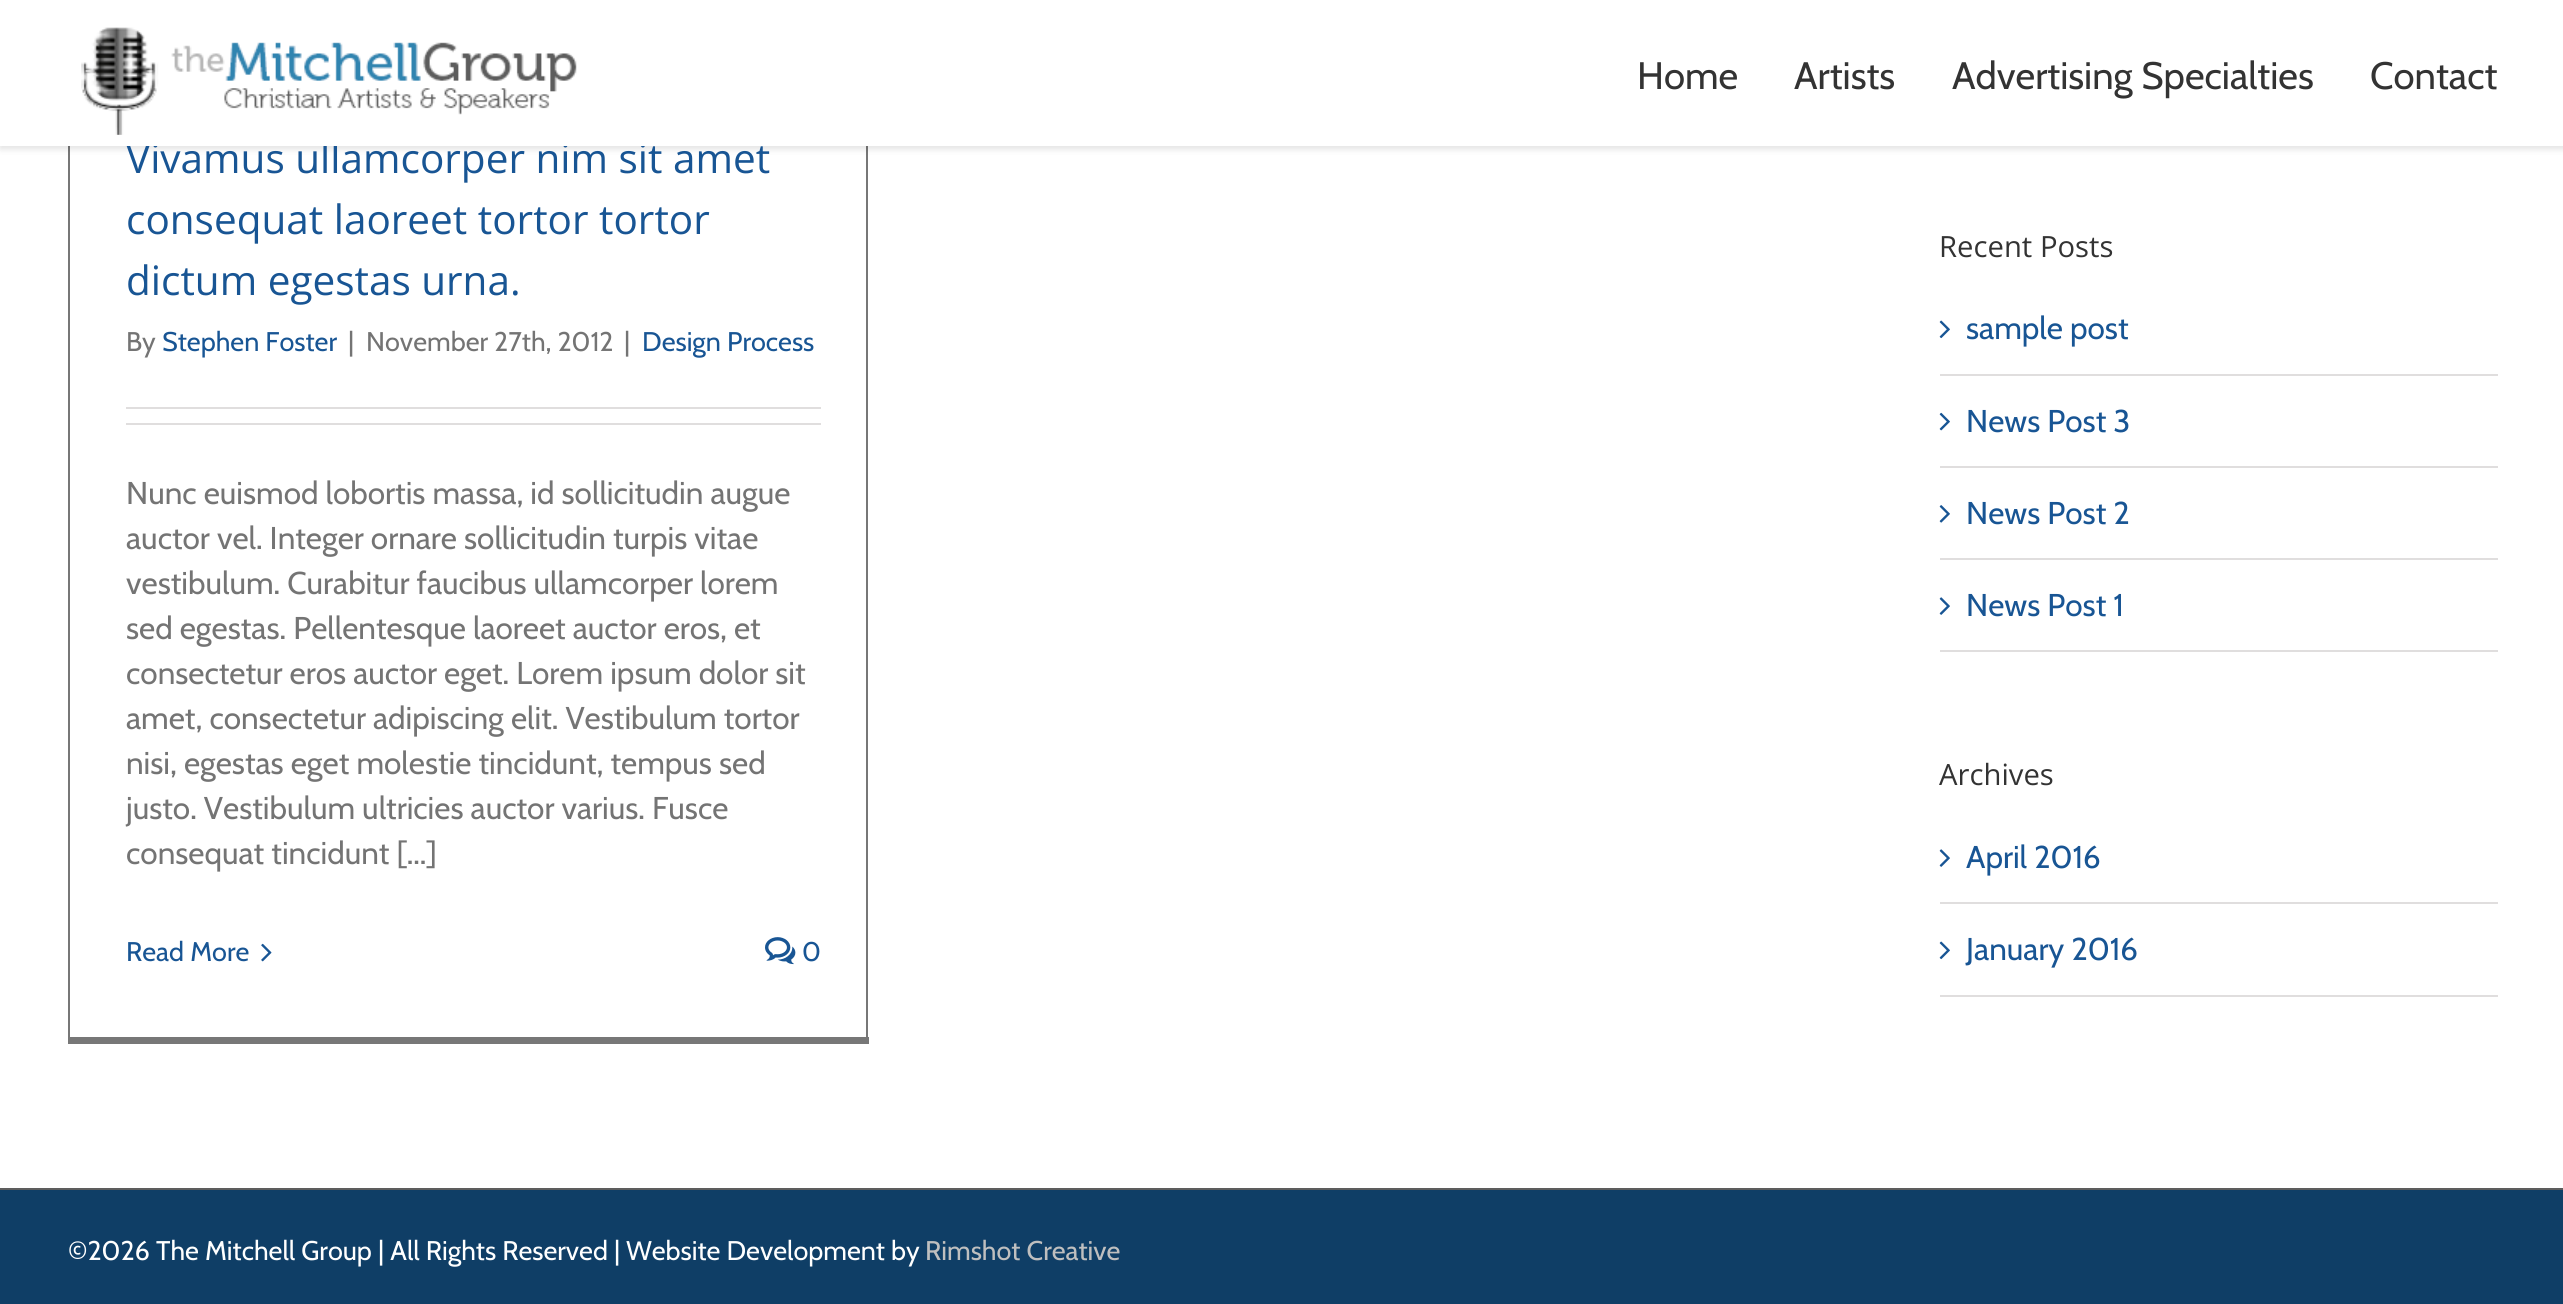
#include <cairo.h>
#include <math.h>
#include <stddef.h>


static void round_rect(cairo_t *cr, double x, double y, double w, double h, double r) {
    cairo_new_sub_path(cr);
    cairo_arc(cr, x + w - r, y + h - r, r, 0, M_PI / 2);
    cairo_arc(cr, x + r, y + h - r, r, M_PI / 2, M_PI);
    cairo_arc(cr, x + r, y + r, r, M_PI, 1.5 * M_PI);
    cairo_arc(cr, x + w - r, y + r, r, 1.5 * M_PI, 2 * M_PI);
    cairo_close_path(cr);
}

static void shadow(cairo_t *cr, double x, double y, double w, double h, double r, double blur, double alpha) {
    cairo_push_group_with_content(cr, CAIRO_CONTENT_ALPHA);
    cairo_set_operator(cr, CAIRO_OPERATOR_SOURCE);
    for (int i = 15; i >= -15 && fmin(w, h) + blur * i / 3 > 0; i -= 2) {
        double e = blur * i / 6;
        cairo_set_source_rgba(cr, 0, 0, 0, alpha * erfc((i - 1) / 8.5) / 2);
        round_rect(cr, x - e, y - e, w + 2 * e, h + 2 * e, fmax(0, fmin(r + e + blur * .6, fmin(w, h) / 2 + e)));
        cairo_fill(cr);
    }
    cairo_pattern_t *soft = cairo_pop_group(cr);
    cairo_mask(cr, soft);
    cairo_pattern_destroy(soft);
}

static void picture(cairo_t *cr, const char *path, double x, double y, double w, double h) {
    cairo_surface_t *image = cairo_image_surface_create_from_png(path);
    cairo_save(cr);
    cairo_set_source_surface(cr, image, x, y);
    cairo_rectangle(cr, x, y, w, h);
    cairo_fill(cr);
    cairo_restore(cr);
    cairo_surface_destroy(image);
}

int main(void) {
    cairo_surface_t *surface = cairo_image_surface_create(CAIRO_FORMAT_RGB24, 2563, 1304);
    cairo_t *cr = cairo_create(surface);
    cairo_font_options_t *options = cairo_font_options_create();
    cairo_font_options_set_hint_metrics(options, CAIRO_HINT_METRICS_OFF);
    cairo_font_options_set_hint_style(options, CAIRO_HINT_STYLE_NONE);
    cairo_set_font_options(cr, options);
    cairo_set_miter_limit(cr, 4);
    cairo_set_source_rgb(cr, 1, 1, 1);
    cairo_paint(cr);
    cairo_set_source_rgb(cr, 0.467, 0.467, 0.467);
    cairo_rectangle(cr, 866, 146, 2, 898);
    cairo_fill(cr);
    cairo_rectangle(cr, 68, 1037, 801, 7);
    cairo_fill(cr);
    cairo_rectangle(cr, 68, 146, 2, 898);
    cairo_fill(cr);
    cairo_set_source_rgb(cr, 0, 0, 0);
    shadow(cr, 0, 2, 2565, 147, 0, 3.5, 0.12);
    cairo_select_font_face(cr, "Open Sans", CAIRO_FONT_SLANT_NORMAL, CAIRO_FONT_WEIGHT_NORMAL);
    cairo_set_font_size(cr, 40.5);
    cairo_set_source_rgb(cr, 0.094, 0.333, 0.58);
    cairo_move_to(cr, 126, 173);
    cairo_show_text(cr, "Vivamus ullamcorper nim sit amet");
    cairo_set_source_rgb(cr, 1, 1, 1);
    cairo_rectangle(cr, 0, 0, 2563, 146);
    cairo_fill(cr);
    picture(cr, "img1.png", 81, 27, 496, 108);
    cairo_select_font_face(cr, "Cabin", CAIRO_FONT_SLANT_NORMAL, CAIRO_FONT_WEIGHT_NORMAL);
    cairo_set_font_size(cr, 38.25);
    cairo_set_source_rgb(cr, 0.2, 0.2, 0.2);
    cairo_move_to(cr, 1637, 89);
    cairo_show_text(cr, "Home");
    cairo_move_to(cr, 1794, 89);
    cairo_show_text(cr, "Artists");
    cairo_move_to(cr, 1952, 89);
    cairo_show_text(cr, "Advertising Specialties");
    cairo_move_to(cr, 2370, 89);
    cairo_show_text(cr, "Contact");
    cairo_select_font_face(cr, "Open Sans", CAIRO_FONT_SLANT_NORMAL, CAIRO_FONT_WEIGHT_NORMAL);
    cairo_set_font_size(cr, 40.5);
    cairo_set_source_rgb(cr, 0.094, 0.333, 0.58);
    cairo_move_to(cr, 126, 234);
    cairo_show_text(cr, "consequat laoreet tortor tortor");
    cairo_move_to(cr, 126, 295);
    cairo_show_text(cr, "dictum egestas urna.");
    cairo_select_font_face(cr, "Cabin", CAIRO_FONT_SLANT_NORMAL, CAIRO_FONT_WEIGHT_NORMAL);
    cairo_set_font_size(cr, 27);
    cairo_set_source_rgb(cr, 0.455, 0.455, 0.455);
    cairo_move_to(cr, 126, 351);
    cairo_show_text(cr, "By");
    cairo_set_source_rgb(cr, 0.094, 0.333, 0.58);
    cairo_move_to(cr, 162, 351);
    cairo_show_text(cr, "Stephen Foster");
    cairo_set_source_rgb(cr, 0.455, 0.455, 0.455);
    cairo_move_to(cr, 348, 351);
    cairo_show_text(cr, "|");
    cairo_move_to(cr, 366, 351);
    cairo_show_text(cr, "November 27th, 2012");
    cairo_move_to(cr, 624, 351);
    cairo_show_text(cr, "|");
    cairo_set_source_rgb(cr, 0.094, 0.333, 0.58);
    cairo_move_to(cr, 642, 351);
    cairo_show_text(cr, "Design Process");
    cairo_set_source_rgb(cr, 0.878, 0.871, 0.871);
    cairo_rectangle(cr, 126, 407, 695, 2);
    cairo_fill(cr);
    cairo_rectangle(cr, 126, 423, 695, 2);
    cairo_fill(cr);
    cairo_set_font_size(cr, 31.5);
    cairo_set_source_rgb(cr, 0.455, 0.455, 0.455);
    cairo_move_to(cr, 126, 504);
    cairo_show_text(cr, "Nunc euismod lobortis massa, id sollicitudin augue");
    cairo_move_to(cr, 126, 549);
    cairo_show_text(cr, "auctor vel. Integer ornare sollicitudin turpis vitae");
    cairo_move_to(cr, 126, 594);
    cairo_show_text(cr, "vestibulum. Curabitur faucibus ullamcorper lorem");
    cairo_move_to(cr, 126, 639);
    cairo_show_text(cr, "sed egestas. Pellentesque laoreet auctor eros, et");
    cairo_move_to(cr, 126, 684);
    cairo_show_text(cr, "consectetur eros auctor eget. Lorem ipsum dolor sit");
    cairo_move_to(cr, 126, 729);
    cairo_show_text(cr, "amet, consectetur adipiscing elit. Vestibulum tortor");
    cairo_move_to(cr, 126, 774);
    cairo_show_text(cr, "nisi, egestas eget molestie tincidunt, tempus sed");
    cairo_move_to(cr, 126, 819);
    cairo_show_text(cr, "justo. Vestibulum ultricies auctor varius. Fusce");
    cairo_move_to(cr, 126, 864);
    cairo_show_text(cr, "consequat tincidunt [...]");
    cairo_set_font_size(cr, 27);
    cairo_set_source_rgb(cr, 0.094, 0.333, 0.58);
    cairo_move_to(cr, 126, 961);
    cairo_show_text(cr, "Read More");
    picture(cr, "img2.png", 261, 943, 11, 19);
    picture(cr, "img3.png", 765, 937, 31, 28);
    cairo_move_to(cr, 802, 961);
    cairo_show_text(cr, "0");
    cairo_select_font_face(cr, "Open Sans", CAIRO_FONT_SLANT_NORMAL, CAIRO_FONT_WEIGHT_NORMAL);
    cairo_set_font_size(cr, 29.25);
    cairo_set_source_rgb(cr, 0.2, 0.2, 0.2);
    cairo_move_to(cr, 1939, 257);
    cairo_show_text(cr, "Recent Posts");
    cairo_set_source_rgb(cr, 0.878, 0.871, 0.871);
    cairo_rectangle(cr, 1940, 374, 558, 2);
    cairo_fill(cr);
    picture(cr, "img4.png", 1939, 320, 11, 19);
    cairo_select_font_face(cr, "Cabin", CAIRO_FONT_SLANT_NORMAL, CAIRO_FONT_WEIGHT_NORMAL);
    cairo_set_font_size(cr, 31.5);
    cairo_set_source_rgb(cr, 0.094, 0.333, 0.58);
    cairo_move_to(cr, 1966, 339);
    cairo_show_text(cr, "sample post");
    cairo_set_source_rgb(cr, 0.878, 0.871, 0.871);
    cairo_rectangle(cr, 1940, 466, 558, 2);
    cairo_fill(cr);
    picture(cr, "img5.png", 1939, 412, 11, 19);
    cairo_set_source_rgb(cr, 0.094, 0.333, 0.58);
    cairo_move_to(cr, 1966, 432);
    cairo_show_text(cr, "News Post 3");
    cairo_set_source_rgb(cr, 0.878, 0.871, 0.871);
    cairo_rectangle(cr, 1940, 558, 558, 2);
    cairo_fill(cr);
    picture(cr, "img6.png", 1939, 505, 11, 18);
    cairo_set_source_rgb(cr, 0.094, 0.333, 0.58);
    cairo_move_to(cr, 1966, 524);
    cairo_show_text(cr, "News Post 2");
    cairo_set_source_rgb(cr, 0.878, 0.871, 0.871);
    cairo_rectangle(cr, 1940, 650, 558, 2);
    cairo_fill(cr);
    picture(cr, "img7.png", 1939, 597, 11, 18);
    cairo_set_source_rgb(cr, 0.094, 0.333, 0.58);
    cairo_move_to(cr, 1966, 616);
    cairo_show_text(cr, "News Post 1");
    cairo_select_font_face(cr, "Open Sans", CAIRO_FONT_SLANT_NORMAL, CAIRO_FONT_WEIGHT_NORMAL);
    cairo_set_font_size(cr, 29.25);
    cairo_set_source_rgb(cr, 0.2, 0.2, 0.2);
    cairo_move_to(cr, 1939, 785);
    cairo_show_text(cr, "Archives");
    cairo_set_source_rgb(cr, 0.878, 0.871, 0.871);
    cairo_rectangle(cr, 1940, 902, 558, 2);
    cairo_fill(cr);
    picture(cr, "img7.png", 1939, 849, 11, 18);
    cairo_select_font_face(cr, "Cabin", CAIRO_FONT_SLANT_NORMAL, CAIRO_FONT_WEIGHT_NORMAL);
    cairo_set_font_size(cr, 31.5);
    cairo_set_source_rgb(cr, 0.094, 0.333, 0.58);
    cairo_move_to(cr, 1966, 868);
    cairo_show_text(cr, "April 2016");
    cairo_set_source_rgb(cr, 0.878, 0.871, 0.871);
    cairo_rectangle(cr, 1940, 995, 558, 2);
    cairo_fill(cr);
    picture(cr, "img4.png", 1939, 941, 11, 19);
    cairo_set_source_rgb(cr, 0.094, 0.333, 0.58);
    cairo_move_to(cr, 1966, 960);
    cairo_show_text(cr, "January 2016");
    cairo_set_source_rgb(cr, 0.059, 0.243, 0.4);
    cairo_rectangle(cr, 0, 1190, 2563, 114);
    cairo_fill(cr);
    cairo_set_source_rgb(cr, 0.365, 0.365, 0.365);
    cairo_rectangle(cr, 0, 1188, 2563, 2);
    cairo_fill(cr);
    cairo_set_font_size(cr, 27);
    cairo_set_source_rgb(cr, 1, 1, 1);
    cairo_move_to(cr, 68, 1260);
    cairo_show_text(cr, "©2026 The Mitchell Group | All Rights Reserved | Website Development by");
    cairo_set_source_rgb(cr, 0.749, 0.749, 0.749);
    cairo_move_to(cr, 925, 1260);
    cairo_show_text(cr, "Rimshot Creative");
    cairo_surface_write_to_png(surface, "page.png");
    cairo_font_options_destroy(options);
    cairo_destroy(cr);
    cairo_surface_destroy(surface);
    return 0;
}
